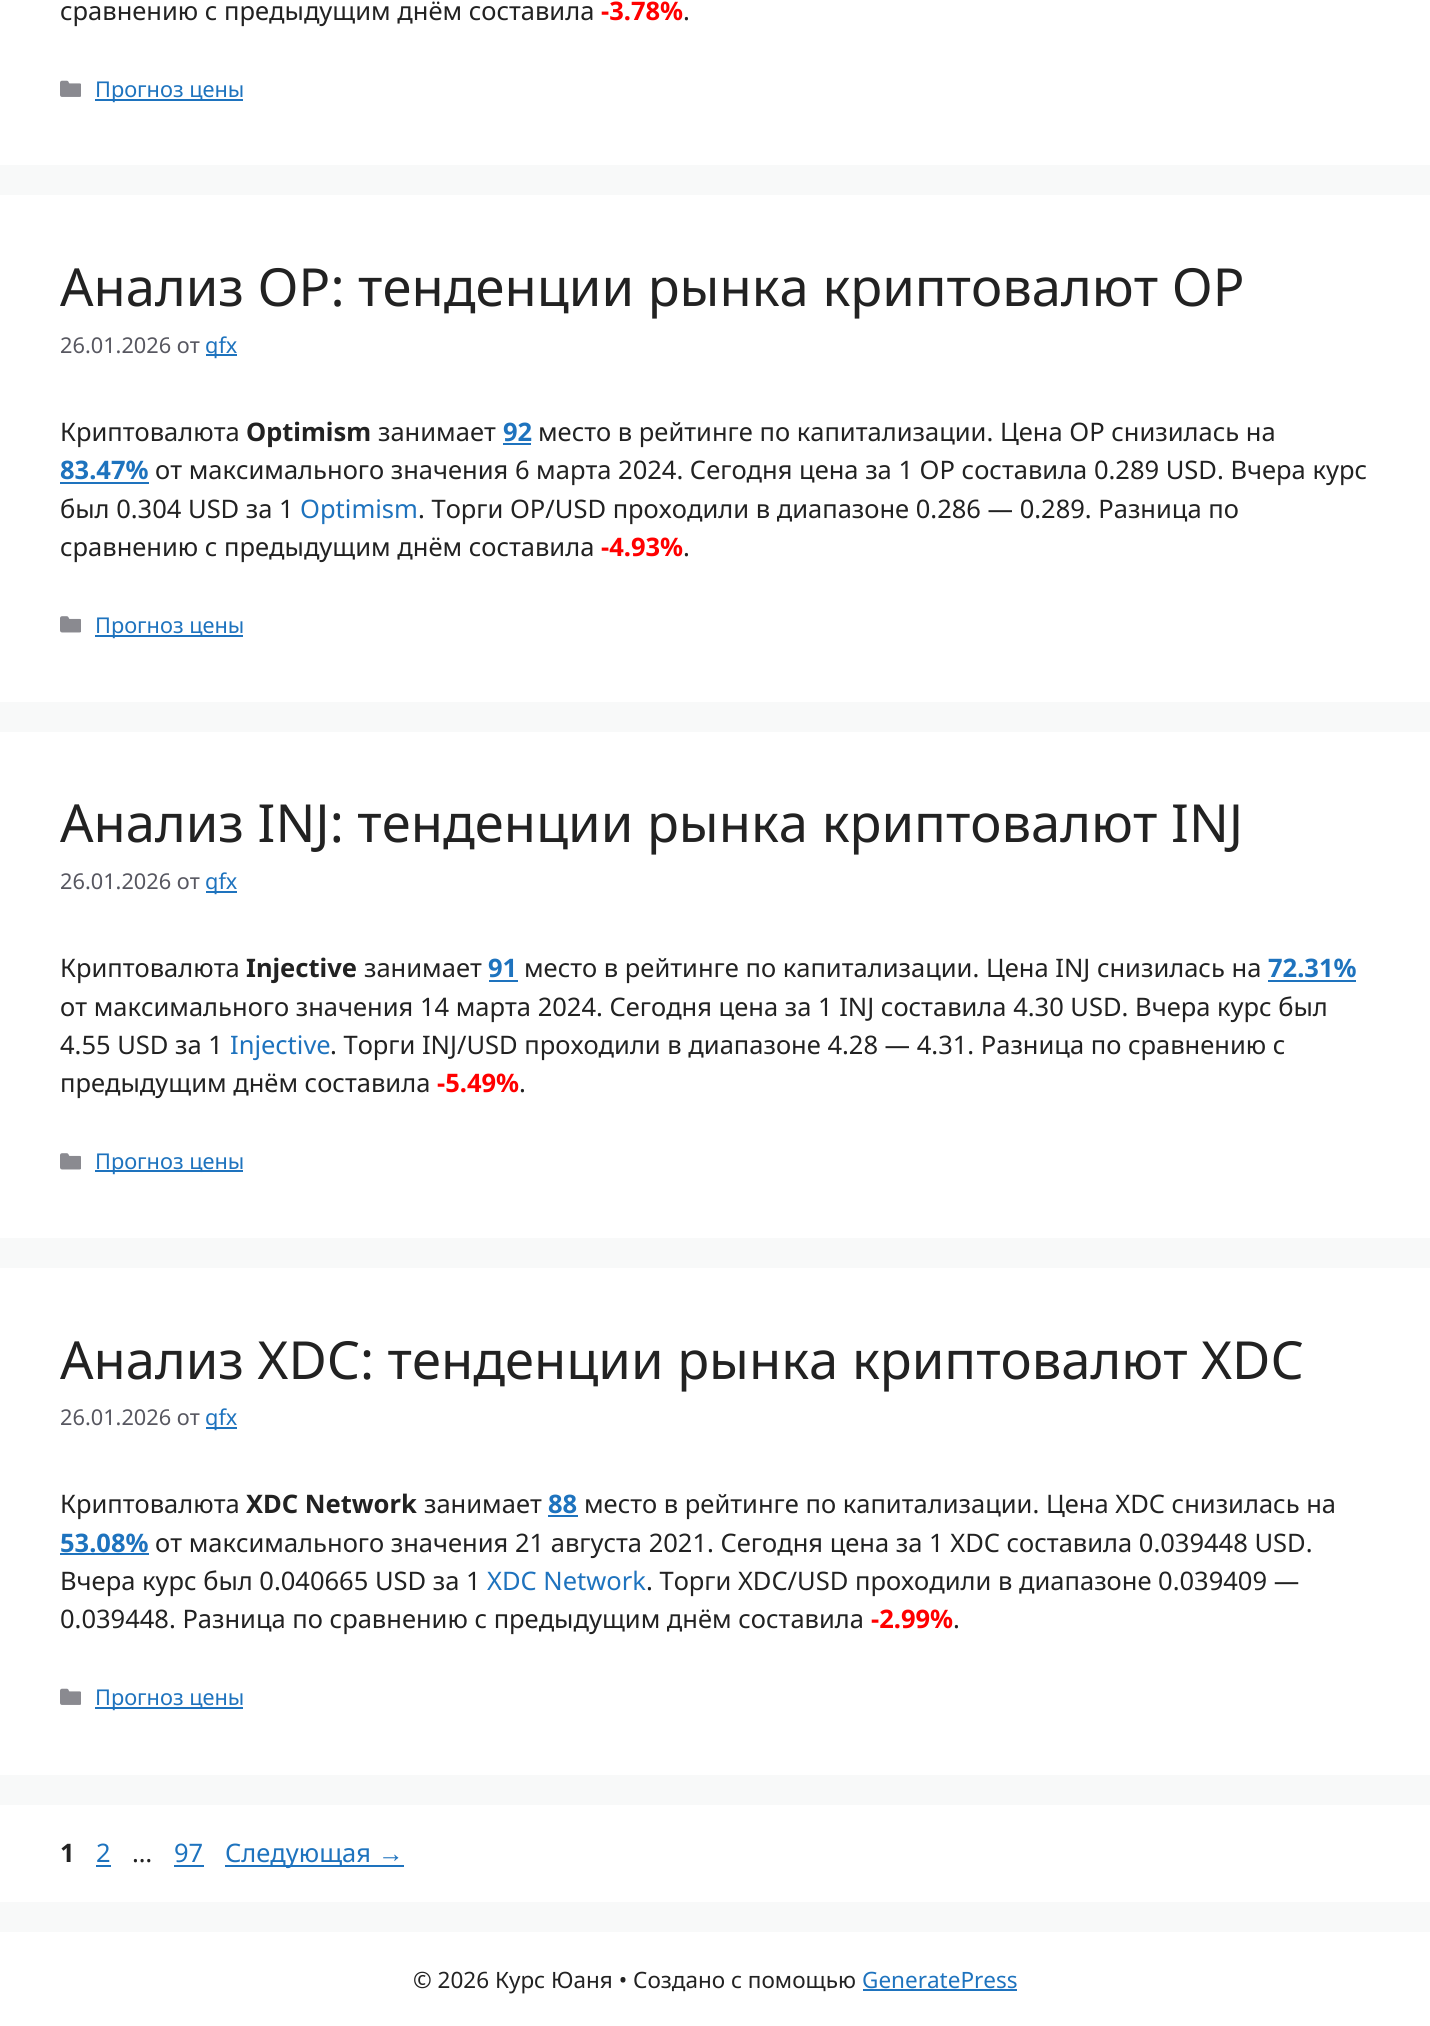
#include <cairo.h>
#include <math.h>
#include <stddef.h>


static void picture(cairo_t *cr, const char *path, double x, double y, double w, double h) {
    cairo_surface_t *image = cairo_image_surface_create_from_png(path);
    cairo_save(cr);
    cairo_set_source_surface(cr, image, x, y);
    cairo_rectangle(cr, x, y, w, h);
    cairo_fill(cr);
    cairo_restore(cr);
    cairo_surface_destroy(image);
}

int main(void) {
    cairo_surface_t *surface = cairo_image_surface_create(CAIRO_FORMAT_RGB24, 1430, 2026);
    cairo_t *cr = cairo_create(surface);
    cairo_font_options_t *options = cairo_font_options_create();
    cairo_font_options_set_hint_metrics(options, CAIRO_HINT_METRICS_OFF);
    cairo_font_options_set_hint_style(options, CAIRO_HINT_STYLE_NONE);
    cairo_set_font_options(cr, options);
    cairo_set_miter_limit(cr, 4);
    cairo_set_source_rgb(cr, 0.969, 0.973, 0.976);
    cairo_paint(cr);
    cairo_set_source_rgb(cr, 1, 1, 1);
    cairo_rectangle(cr, 0, 0, 1430, 165);
    cairo_fill(cr);
    cairo_select_font_face(cr, "Noto Sans", CAIRO_FONT_SLANT_NORMAL, CAIRO_FONT_WEIGHT_NORMAL);
    cairo_set_font_size(cr, 25.5);
    cairo_set_source_rgb(cr, 0.133, 0.133, 0.133);
    cairo_move_to(cr, 60, 20);
    cairo_show_text(cr, "сравнению с предыдущим днём составила");
    cairo_select_font_face(cr, "Noto Sans", CAIRO_FONT_SLANT_NORMAL, CAIRO_FONT_WEIGHT_BOLD);
    cairo_set_source_rgb(cr, 1, 0, 0);
    cairo_move_to(cr, 601, 20);
    cairo_show_text(cr, "-3.78%");
    cairo_select_font_face(cr, "Noto Sans", CAIRO_FONT_SLANT_NORMAL, CAIRO_FONT_WEIGHT_NORMAL);
    cairo_set_source_rgb(cr, 0.133, 0.133, 0.133);
    cairo_move_to(cr, 683, 20);
    cairo_show_text(cr, ".");
    picture(cr, "img1.png", 60, 80, 21, 17);
    cairo_set_source_rgb(cr, 0.118, 0.451, 0.745);
    cairo_rectangle(cr, 95, 99, 148, 2);
    cairo_fill(cr);
    cairo_set_font_size(cr, 21.75);
    cairo_move_to(cr, 95, 97);
    cairo_show_text(cr, "Прогноз цены");
    cairo_set_source_rgb(cr, 1, 1, 1);
    cairo_rectangle(cr, 0, 195, 1430, 507);
    cairo_fill(cr);
    cairo_set_font_size(cr, 52.5);
    cairo_set_source_rgb(cr, 0.133, 0.133, 0.133);
    cairo_move_to(cr, 60, 306);
    cairo_show_text(cr, "Анализ OP: тенденции рынка криптовалют OP");
    cairo_set_font_size(cr, 21.75);
    cairo_set_source_rgb(cr, 0.341, 0.341, 0.376);
    cairo_move_to(cr, 60, 353);
    cairo_show_text(cr, "26.01.2026 от");
    cairo_set_source_rgb(cr, 0.118, 0.451, 0.745);
    cairo_rectangle(cr, 206, 354, 31, 2);
    cairo_fill(cr);
    cairo_move_to(cr, 205, 353);
    cairo_show_text(cr, "qfx");
    cairo_set_font_size(cr, 25.5);
    cairo_set_source_rgb(cr, 0.133, 0.133, 0.133);
    cairo_move_to(cr, 60, 441);
    cairo_show_text(cr, "Криптовалюта");
    cairo_select_font_face(cr, "Noto Sans", CAIRO_FONT_SLANT_NORMAL, CAIRO_FONT_WEIGHT_BOLD);
    cairo_move_to(cr, 246, 441);
    cairo_show_text(cr, "Optimism");
    cairo_select_font_face(cr, "Noto Sans", CAIRO_FONT_SLANT_NORMAL, CAIRO_FONT_WEIGHT_NORMAL);
    cairo_move_to(cr, 378, 441);
    cairo_show_text(cr, "занимает");
    cairo_select_font_face(cr, "Noto Sans", CAIRO_FONT_SLANT_NORMAL, CAIRO_FONT_WEIGHT_BOLD);
    cairo_set_source_rgb(cr, 0.118, 0.451, 0.745);
    cairo_move_to(cr, 503, 441);
    cairo_show_text(cr, "92");
    cairo_rectangle(cr, 503, 443, 28, 2);
    cairo_fill(cr);
    cairo_select_font_face(cr, "Noto Sans", CAIRO_FONT_SLANT_NORMAL, CAIRO_FONT_WEIGHT_NORMAL);
    cairo_set_source_rgb(cr, 0.133, 0.133, 0.133);
    cairo_move_to(cr, 538, 441);
    cairo_show_text(cr, "место в рейтинге по капитализации. Цена OP снизилась на");
    cairo_select_font_face(cr, "Noto Sans", CAIRO_FONT_SLANT_NORMAL, CAIRO_FONT_WEIGHT_BOLD);
    cairo_set_source_rgb(cr, 0.118, 0.451, 0.745);
    cairo_move_to(cr, 60, 479);
    cairo_show_text(cr, "83.47%");
    cairo_rectangle(cr, 60, 482, 89, 2);
    cairo_fill(cr);
    cairo_select_font_face(cr, "Noto Sans", CAIRO_FONT_SLANT_NORMAL, CAIRO_FONT_WEIGHT_NORMAL);
    cairo_set_source_rgb(cr, 0.133, 0.133, 0.133);
    cairo_move_to(cr, 155, 479);
    cairo_show_text(cr, "от максимального значения 6 марта 2024. Сегодня цена за 1 OP составила 0.289 USD. Вчера курс");
    cairo_move_to(cr, 60, 518);
    cairo_show_text(cr, "был 0.304 USD за 1");
    cairo_set_source_rgb(cr, 0.118, 0.451, 0.745);
    cairo_move_to(cr, 300, 518);
    cairo_show_text(cr, "Optimism");
    cairo_set_source_rgb(cr, 0.133, 0.133, 0.133);
    cairo_move_to(cr, 418, 518);
    cairo_show_text(cr, ". Торги OP/USD проходили в диапазоне 0.286 — 0.289. Разница по");
    cairo_move_to(cr, 60, 556);
    cairo_show_text(cr, "сравнению с предыдущим днём составила");
    cairo_select_font_face(cr, "Noto Sans", CAIRO_FONT_SLANT_NORMAL, CAIRO_FONT_WEIGHT_BOLD);
    cairo_set_source_rgb(cr, 1, 0, 0);
    cairo_move_to(cr, 601, 556);
    cairo_show_text(cr, "-4.93%");
    cairo_select_font_face(cr, "Noto Sans", CAIRO_FONT_SLANT_NORMAL, CAIRO_FONT_WEIGHT_NORMAL);
    cairo_set_source_rgb(cr, 0.133, 0.133, 0.133);
    cairo_move_to(cr, 683, 556);
    cairo_show_text(cr, ".");
    picture(cr, "img2.png", 60, 616, 21, 17);
    cairo_set_source_rgb(cr, 0.118, 0.451, 0.745);
    cairo_rectangle(cr, 95, 635, 148, 2);
    cairo_fill(cr);
    cairo_set_font_size(cr, 21.75);
    cairo_move_to(cr, 95, 633);
    cairo_show_text(cr, "Прогноз цены");
    cairo_set_source_rgb(cr, 1, 1, 1);
    cairo_rectangle(cr, 0, 732, 1430, 506);
    cairo_fill(cr);
    cairo_set_font_size(cr, 52.5);
    cairo_set_source_rgb(cr, 0.133, 0.133, 0.133);
    cairo_move_to(cr, 60, 842);
    cairo_show_text(cr, "Анализ INJ: тенденции рынка криптовалют INJ");
    cairo_set_font_size(cr, 21.75);
    cairo_set_source_rgb(cr, 0.341, 0.341, 0.376);
    cairo_move_to(cr, 60, 889);
    cairo_show_text(cr, "26.01.2026 от");
    cairo_set_source_rgb(cr, 0.118, 0.451, 0.745);
    cairo_rectangle(cr, 206, 891, 31, 2);
    cairo_fill(cr);
    cairo_move_to(cr, 205, 889);
    cairo_show_text(cr, "qfx");
    cairo_set_font_size(cr, 25.5);
    cairo_set_source_rgb(cr, 0.133, 0.133, 0.133);
    cairo_move_to(cr, 60, 977);
    cairo_show_text(cr, "Криптовалюта");
    cairo_select_font_face(cr, "Noto Sans", CAIRO_FONT_SLANT_NORMAL, CAIRO_FONT_WEIGHT_BOLD);
    cairo_move_to(cr, 246, 977);
    cairo_show_text(cr, "Injective");
    cairo_select_font_face(cr, "Noto Sans", CAIRO_FONT_SLANT_NORMAL, CAIRO_FONT_WEIGHT_NORMAL);
    cairo_move_to(cr, 364, 977);
    cairo_show_text(cr, "занимает");
    cairo_select_font_face(cr, "Noto Sans", CAIRO_FONT_SLANT_NORMAL, CAIRO_FONT_WEIGHT_BOLD);
    cairo_set_source_rgb(cr, 0.118, 0.451, 0.745);
    cairo_move_to(cr, 488, 977);
    cairo_show_text(cr, "91");
    cairo_rectangle(cr, 489, 980, 29, 2);
    cairo_fill(cr);
    cairo_select_font_face(cr, "Noto Sans", CAIRO_FONT_SLANT_NORMAL, CAIRO_FONT_WEIGHT_NORMAL);
    cairo_set_source_rgb(cr, 0.133, 0.133, 0.133);
    cairo_move_to(cr, 524, 977);
    cairo_show_text(cr, "место в рейтинге по капитализации. Цена INJ снизилась на");
    cairo_select_font_face(cr, "Noto Sans", CAIRO_FONT_SLANT_NORMAL, CAIRO_FONT_WEIGHT_BOLD);
    cairo_set_source_rgb(cr, 0.118, 0.451, 0.745);
    cairo_move_to(cr, 1268, 977);
    cairo_show_text(cr, "72.31%");
    cairo_rectangle(cr, 1268, 980, 88, 2);
    cairo_fill(cr);
    cairo_select_font_face(cr, "Noto Sans", CAIRO_FONT_SLANT_NORMAL, CAIRO_FONT_WEIGHT_NORMAL);
    cairo_set_source_rgb(cr, 0.133, 0.133, 0.133);
    cairo_move_to(cr, 60, 1016);
    cairo_show_text(cr, "от максимального значения 14 марта 2024. Сегодня цена за 1 INJ составила 4.30 USD. Вчера курс был");
    cairo_move_to(cr, 60, 1054);
    cairo_show_text(cr, "4.55 USD за 1");
    cairo_set_source_rgb(cr, 0.118, 0.451, 0.745);
    cairo_move_to(cr, 230, 1054);
    cairo_show_text(cr, "Injective");
    cairo_set_source_rgb(cr, 0.133, 0.133, 0.133);
    cairo_move_to(cr, 330, 1054);
    cairo_show_text(cr, ". Торги INJ/USD проходили в диапазоне 4.28 — 4.31. Разница по сравнению с");
    cairo_move_to(cr, 60, 1092);
    cairo_show_text(cr, "предыдущим днём составила");
    cairo_select_font_face(cr, "Noto Sans", CAIRO_FONT_SLANT_NORMAL, CAIRO_FONT_WEIGHT_BOLD);
    cairo_set_source_rgb(cr, 1, 0, 0);
    cairo_move_to(cr, 437, 1092);
    cairo_show_text(cr, "-5.49%");
    cairo_select_font_face(cr, "Noto Sans", CAIRO_FONT_SLANT_NORMAL, CAIRO_FONT_WEIGHT_NORMAL);
    cairo_set_source_rgb(cr, 0.133, 0.133, 0.133);
    cairo_move_to(cr, 519, 1092);
    cairo_show_text(cr, ".");
    picture(cr, "img2.png", 60, 1153, 21, 17);
    cairo_set_source_rgb(cr, 0.118, 0.451, 0.745);
    cairo_rectangle(cr, 95, 1170, 148, 2);
    cairo_fill(cr);
    cairo_set_font_size(cr, 21.75);
    cairo_move_to(cr, 95, 1169);
    cairo_show_text(cr, "Прогноз цены");
    cairo_set_source_rgb(cr, 1, 1, 1);
    cairo_rectangle(cr, 0, 1268, 1430, 507);
    cairo_fill(cr);
    cairo_set_font_size(cr, 52.5);
    cairo_set_source_rgb(cr, 0.133, 0.133, 0.133);
    cairo_move_to(cr, 60, 1379);
    cairo_show_text(cr, "Анализ XDC: тенденции рынка криптовалют XDC");
    cairo_set_font_size(cr, 21.75);
    cairo_set_source_rgb(cr, 0.341, 0.341, 0.376);
    cairo_move_to(cr, 60, 1425);
    cairo_show_text(cr, "26.01.2026 от");
    cairo_set_source_rgb(cr, 0.118, 0.451, 0.745);
    cairo_rectangle(cr, 206, 1427, 31, 2);
    cairo_fill(cr);
    cairo_move_to(cr, 205, 1425);
    cairo_show_text(cr, "qfx");
    cairo_set_font_size(cr, 25.5);
    cairo_set_source_rgb(cr, 0.133, 0.133, 0.133);
    cairo_move_to(cr, 60, 1513);
    cairo_show_text(cr, "Криптовалюта");
    cairo_select_font_face(cr, "Noto Sans", CAIRO_FONT_SLANT_NORMAL, CAIRO_FONT_WEIGHT_BOLD);
    cairo_move_to(cr, 246, 1513);
    cairo_show_text(cr, "XDC Network");
    cairo_select_font_face(cr, "Noto Sans", CAIRO_FONT_SLANT_NORMAL, CAIRO_FONT_WEIGHT_NORMAL);
    cairo_move_to(cr, 424, 1513);
    cairo_show_text(cr, "занимает");
    cairo_select_font_face(cr, "Noto Sans", CAIRO_FONT_SLANT_NORMAL, CAIRO_FONT_WEIGHT_BOLD);
    cairo_set_source_rgb(cr, 0.118, 0.451, 0.745);
    cairo_move_to(cr, 548, 1513);
    cairo_show_text(cr, "88");
    cairo_rectangle(cr, 548, 1515, 30, 2);
    cairo_fill(cr);
    cairo_select_font_face(cr, "Noto Sans", CAIRO_FONT_SLANT_NORMAL, CAIRO_FONT_WEIGHT_NORMAL);
    cairo_set_source_rgb(cr, 0.133, 0.133, 0.133);
    cairo_move_to(cr, 584, 1513);
    cairo_show_text(cr, "место в рейтинге по капитализации. Цена XDC снизилась на");
    cairo_select_font_face(cr, "Noto Sans", CAIRO_FONT_SLANT_NORMAL, CAIRO_FONT_WEIGHT_BOLD);
    cairo_set_source_rgb(cr, 0.118, 0.451, 0.745);
    cairo_move_to(cr, 60, 1552);
    cairo_show_text(cr, "53.08%");
    cairo_rectangle(cr, 60, 1553, 89, 2);
    cairo_fill(cr);
    cairo_select_font_face(cr, "Noto Sans", CAIRO_FONT_SLANT_NORMAL, CAIRO_FONT_WEIGHT_NORMAL);
    cairo_set_source_rgb(cr, 0.133, 0.133, 0.133);
    cairo_move_to(cr, 155, 1552);
    cairo_show_text(cr, "от максимального значения 21 августа 2021. Сегодня цена за 1 XDC составила 0.039448 USD.");
    cairo_move_to(cr, 60, 1590);
    cairo_show_text(cr, "Вчера курс был 0.040665 USD за 1");
    cairo_set_source_rgb(cr, 0.118, 0.451, 0.745);
    cairo_move_to(cr, 487, 1590);
    cairo_show_text(cr, "XDC Network");
    cairo_set_source_rgb(cr, 0.133, 0.133, 0.133);
    cairo_move_to(cr, 646, 1590);
    cairo_show_text(cr, ". Торги XDC/USD проходили в диапазоне 0.039409 —");
    cairo_move_to(cr, 60, 1628);
    cairo_show_text(cr, "0.039448. Разница по сравнению с предыдущим днём составила");
    cairo_select_font_face(cr, "Noto Sans", CAIRO_FONT_SLANT_NORMAL, CAIRO_FONT_WEIGHT_BOLD);
    cairo_set_source_rgb(cr, 1, 0, 0);
    cairo_move_to(cr, 871, 1628);
    cairo_show_text(cr, "-2.99%");
    cairo_select_font_face(cr, "Noto Sans", CAIRO_FONT_SLANT_NORMAL, CAIRO_FONT_WEIGHT_NORMAL);
    cairo_set_source_rgb(cr, 0.133, 0.133, 0.133);
    cairo_move_to(cr, 953, 1628);
    cairo_show_text(cr, ".");
    picture(cr, "img1.png", 60, 1688, 21, 17);
    cairo_set_source_rgb(cr, 0.118, 0.451, 0.745);
    cairo_rectangle(cr, 95, 1707, 148, 2);
    cairo_fill(cr);
    cairo_set_font_size(cr, 21.75);
    cairo_move_to(cr, 95, 1705);
    cairo_show_text(cr, "Прогноз цены");
    cairo_set_source_rgb(cr, 1, 1, 1);
    cairo_rectangle(cr, 0, 1805, 1430, 97);
    cairo_fill(cr);
    cairo_select_font_face(cr, "Noto Sans", CAIRO_FONT_SLANT_NORMAL, CAIRO_FONT_WEIGHT_BOLD);
    cairo_set_font_size(cr, 25.5);
    cairo_set_source_rgb(cr, 0.133, 0.133, 0.133);
    cairo_move_to(cr, 60, 1862);
    cairo_show_text(cr, "1");
    cairo_select_font_face(cr, "Noto Sans", CAIRO_FONT_SLANT_NORMAL, CAIRO_FONT_WEIGHT_NORMAL);
    cairo_set_source_rgb(cr, 0.118, 0.451, 0.745);
    cairo_move_to(cr, 96, 1862);
    cairo_show_text(cr, "2");
    cairo_rectangle(cr, 96, 1865, 15, 2);
    cairo_fill(cr);
    cairo_set_source_rgb(cr, 0.133, 0.133, 0.133);
    cairo_move_to(cr, 132, 1862);
    cairo_show_text(cr, "…");
    cairo_set_source_rgb(cr, 0.118, 0.451, 0.745);
    cairo_move_to(cr, 174, 1862);
    cairo_show_text(cr, "97");
    cairo_rectangle(cr, 174, 1865, 30, 2);
    cairo_fill(cr);
    cairo_rectangle(cr, 225, 1865, 179, 2);
    cairo_fill(cr);
    cairo_move_to(cr, 225, 1862);
    cairo_show_text(cr, "Следующая");
    cairo_select_font_face(cr, "Liberation Sans", CAIRO_FONT_SLANT_NORMAL, CAIRO_FONT_WEIGHT_NORMAL);
    cairo_move_to(cr, 378, 1862);
    cairo_show_text(cr, "→");
    cairo_set_source_rgb(cr, 1, 1, 1);
    cairo_rectangle(cr, 0, 1932, 1430, 94);
    cairo_fill(cr);
    cairo_select_font_face(cr, "Noto Sans", CAIRO_FONT_SLANT_NORMAL, CAIRO_FONT_WEIGHT_NORMAL);
    cairo_set_font_size(cr, 22.5);
    cairo_set_source_rgb(cr, 0.133, 0.133, 0.133);
    cairo_move_to(cr, 413, 1988);
    cairo_show_text(cr, "© 2026 Курс Юаня • Создано с помощью");
    cairo_set_source_rgb(cr, 0.118, 0.451, 0.745);
    cairo_move_to(cr, 862, 1988);
    cairo_show_text(cr, "GeneratePress");
    cairo_rectangle(cr, 863, 1989, 154, 2);
    cairo_fill(cr);
    cairo_surface_write_to_png(surface, "page.png");
    cairo_font_options_destroy(options);
    cairo_destroy(cr);
    cairo_surface_destroy(surface);
    return 0;
}
